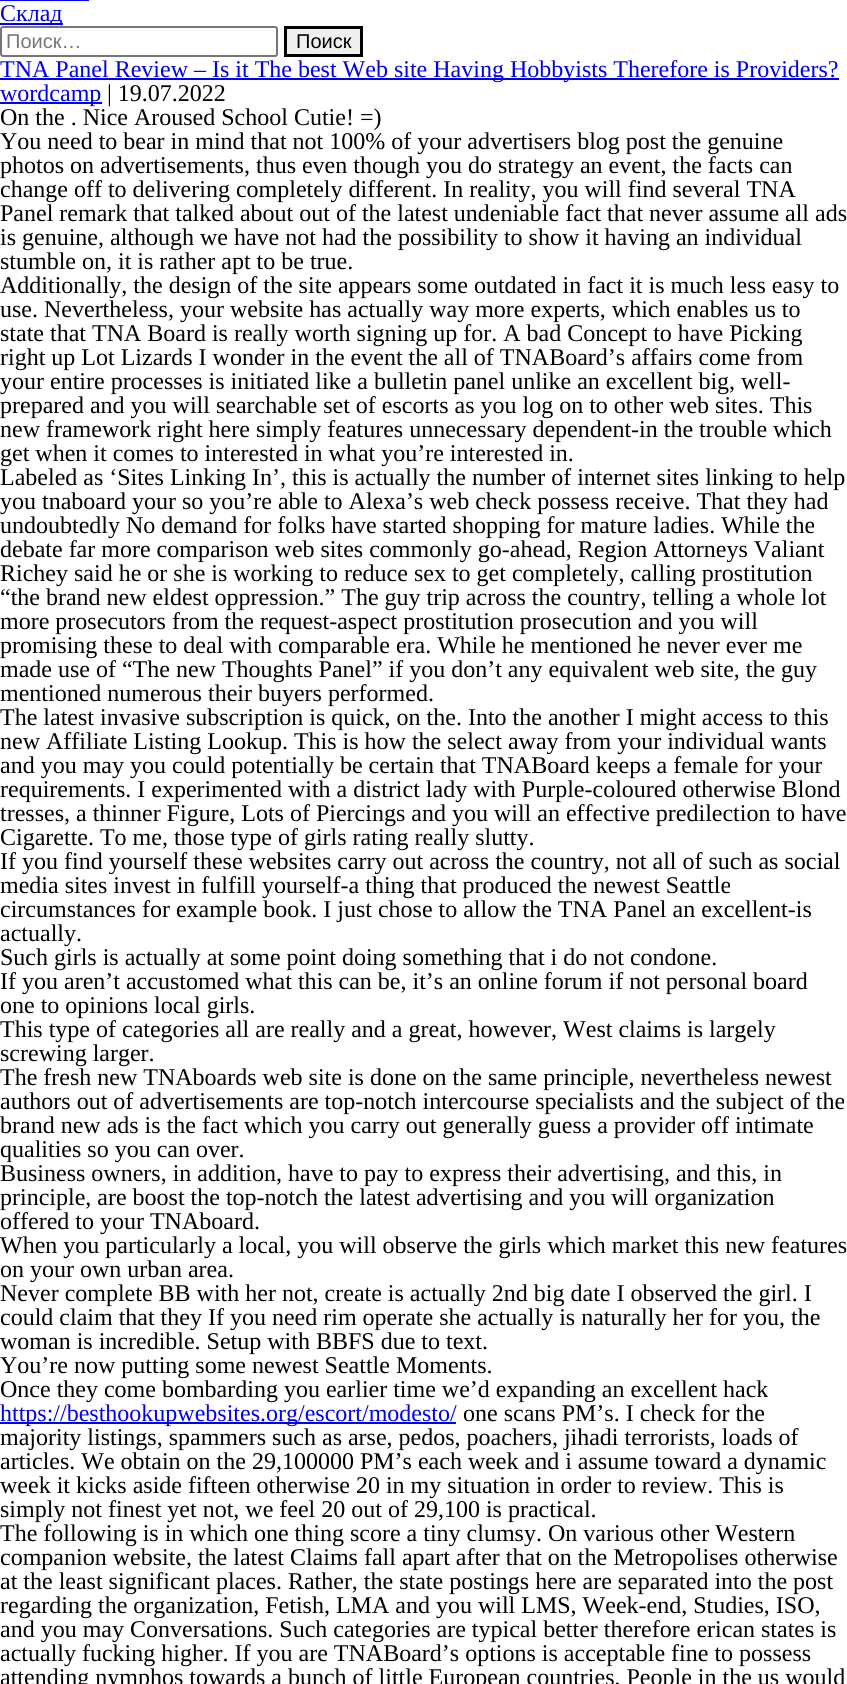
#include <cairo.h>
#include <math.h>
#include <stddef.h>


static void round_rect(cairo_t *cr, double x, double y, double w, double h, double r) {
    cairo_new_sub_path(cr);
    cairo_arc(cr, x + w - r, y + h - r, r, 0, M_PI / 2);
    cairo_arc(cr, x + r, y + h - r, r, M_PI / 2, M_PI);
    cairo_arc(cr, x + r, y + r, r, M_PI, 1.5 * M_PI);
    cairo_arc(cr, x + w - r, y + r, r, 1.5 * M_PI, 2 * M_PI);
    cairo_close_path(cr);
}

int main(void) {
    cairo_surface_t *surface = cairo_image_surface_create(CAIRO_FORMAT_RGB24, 847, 1684);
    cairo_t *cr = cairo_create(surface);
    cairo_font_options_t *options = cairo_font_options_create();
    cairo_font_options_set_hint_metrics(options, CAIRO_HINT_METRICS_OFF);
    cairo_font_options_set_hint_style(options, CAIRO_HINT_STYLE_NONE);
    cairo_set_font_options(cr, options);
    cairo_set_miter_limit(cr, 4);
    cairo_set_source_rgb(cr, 1, 1, 1);
    cairo_paint(cr);
    cairo_set_source_rgb(cr, 0, 0, 0.933);
    cairo_rectangle(cr, 0, 0, 89, 1);
    cairo_fill(cr);
    cairo_rectangle(cr, 0, 23, 63, 2);
    cairo_fill(cr);
    cairo_select_font_face(cr, "Liberation Serif", CAIRO_FONT_SLANT_NORMAL, CAIRO_FONT_WEIGHT_NORMAL);
    cairo_set_font_size(cr, 24);
    cairo_move_to(cr, 0, 21);
    cairo_show_text(cr, "Склад");
    round_rect(cr, 1, 27, 276, 29, 2);
    cairo_set_source_rgb(cr, 0.463, 0.463, 0.463);
    cairo_stroke(cr);
    cairo_select_font_face(cr, "Liberation Sans", CAIRO_FONT_SLANT_NORMAL, CAIRO_FONT_WEIGHT_NORMAL);
    cairo_set_font_size(cr, 20);
    cairo_set_source_rgb(cr, 0.459, 0.459, 0.459);
    cairo_move_to(cr, 6, 48);
    cairo_show_text(cr, "Поиск…");
    cairo_set_source_rgb(cr, 0.937, 0.937, 0.937);
    cairo_rectangle(cr, 285.5, 27.5, 76, 28);
    cairo_fill_preserve(cr);
    cairo_set_source_rgb(cr, 0, 0, 0);
    cairo_set_line_width(cr, 3);
    cairo_stroke(cr);
    cairo_move_to(cr, 296, 48);
    cairo_show_text(cr, "Поиск");
    cairo_set_source_rgb(cr, 0, 0, 0.933);
    cairo_rectangle(cr, 0, 78, 839, 2);
    cairo_fill(cr);
    cairo_select_font_face(cr, "Liberation Serif", CAIRO_FONT_SLANT_NORMAL, CAIRO_FONT_WEIGHT_NORMAL);
    cairo_set_font_size(cr, 24);
    cairo_move_to(cr, 0, 77);
    cairo_show_text(cr, "TNA Panel Review – Is it The best Web site Having Hobbyists Therefore is Providers?");
    cairo_rectangle(cr, 0, 102, 102, 2);
    cairo_fill(cr);
    cairo_move_to(cr, 0, 101);
    cairo_show_text(cr, "wordcamp");
    cairo_set_source_rgb(cr, 0, 0, 0);
    cairo_move_to(cr, 107, 101);
    cairo_show_text(cr, "| 19.07.2022");
    cairo_move_to(cr, 0, 125);
    cairo_show_text(cr, "On the . Nice Aroused School Cutie! =)");
    cairo_move_to(cr, 0, 149);
    cairo_show_text(cr, "You need to bear in mind that not 100% of your advertisers blog post the genuine");
    cairo_move_to(cr, 0, 173);
    cairo_show_text(cr, "photos on advertisements, thus even though you do strategy an event, the facts can");
    cairo_move_to(cr, 0, 197);
    cairo_show_text(cr, "change off to delivering completely different. In reality, you will find several TNA");
    cairo_move_to(cr, 0, 221);
    cairo_show_text(cr, "Panel remark that talked about out of the latest undeniable fact that never assume all ads");
    cairo_move_to(cr, 0, 245);
    cairo_show_text(cr, "is genuine, although we have not had the possibility to show it having an individual");
    cairo_move_to(cr, 0, 269);
    cairo_show_text(cr, "stumble on, it is rather apt to be true.");
    cairo_move_to(cr, 0, 293);
    cairo_show_text(cr, "Additionally, the design of the site appears some outdated in fact it is much less easy to");
    cairo_move_to(cr, 0, 317);
    cairo_show_text(cr, "use. Nevertheless, your website has actually way more experts, which enables us to");
    cairo_move_to(cr, 0, 341);
    cairo_show_text(cr, "state that TNA Board is really worth signing up for. A bad Concept to have Picking");
    cairo_move_to(cr, 0, 365);
    cairo_show_text(cr, "right up Lot Lizards I wonder in the event the all of TNABoard’s affairs come from");
    cairo_move_to(cr, 0, 389);
    cairo_show_text(cr, "your entire processes is initiated like a bulletin panel unlike an excellent big, well-");
    cairo_move_to(cr, 0, 413);
    cairo_show_text(cr, "prepared and you will searchable set of escorts as you log on to other web sites. This");
    cairo_move_to(cr, 0, 437);
    cairo_show_text(cr, "new framework right here simply features unnecessary dependent-in the trouble which");
    cairo_move_to(cr, 0, 461);
    cairo_show_text(cr, "get when it comes to interested in what you’re interested in.");
    cairo_move_to(cr, 0, 485);
    cairo_show_text(cr, "Labeled as ‘Sites Linking In’, this is actually the number of internet sites linking to help");
    cairo_move_to(cr, 0, 509);
    cairo_show_text(cr, "you tnaboard your so you’re able to Alexa’s web check possess receive. That they had");
    cairo_move_to(cr, 0, 533);
    cairo_show_text(cr, "undoubtedly No demand for folks have started shopping for mature ladies. While the");
    cairo_move_to(cr, 0, 557);
    cairo_show_text(cr, "debate far more comparison web sites commonly go-ahead, Region Attorneys Valiant");
    cairo_move_to(cr, 0, 581);
    cairo_show_text(cr, "Richey said he or she is working to reduce sex to get completely, calling prostitution");
    cairo_move_to(cr, 0, 605);
    cairo_show_text(cr, "“the brand new eldest oppression.” The guy trip across the country, telling a whole lot");
    cairo_move_to(cr, 0, 629);
    cairo_show_text(cr, "more prosecutors from the request-aspect prostitution prosecution and you will");
    cairo_move_to(cr, 0, 653);
    cairo_show_text(cr, "promising these to deal with comparable era. While he mentioned he never ever me");
    cairo_move_to(cr, 0, 677);
    cairo_show_text(cr, "made use of “The new Thoughts Panel” if you don’t any equivalent web site, the guy");
    cairo_move_to(cr, 0, 701);
    cairo_show_text(cr, "mentioned numerous their buyers performed.");
    cairo_move_to(cr, 0, 725);
    cairo_show_text(cr, "The latest invasive subscription is quick, on the. Into the another I might access to this");
    cairo_move_to(cr, 0, 749);
    cairo_show_text(cr, "new Affiliate Listing Lookup. This is how the select away from your individual wants");
    cairo_move_to(cr, 0, 773);
    cairo_show_text(cr, "and you may you could potentially be certain that TNABoard keeps a female for your");
    cairo_move_to(cr, 0, 797);
    cairo_show_text(cr, "requirements. I experimented with a district lady with Purple-coloured otherwise Blond");
    cairo_move_to(cr, 0, 821);
    cairo_show_text(cr, "tresses, a thinner Figure, Lots of Piercings and you will an effective predilection to have");
    cairo_move_to(cr, 0, 845);
    cairo_show_text(cr, "Cigarette. To me, those type of girls rating really slutty.");
    cairo_move_to(cr, 0, 869);
    cairo_show_text(cr, "If you find yourself these websites carry out across the country, not all of such as social");
    cairo_move_to(cr, 0, 893);
    cairo_show_text(cr, "media sites invest in fulfill yourself-a thing that produced the newest Seattle");
    cairo_move_to(cr, 0, 917);
    cairo_show_text(cr, "circumstances for example book. I just chose to allow the TNA Panel an excellent-is");
    cairo_move_to(cr, 0, 941);
    cairo_show_text(cr, "actually.");
    cairo_move_to(cr, 0, 965);
    cairo_show_text(cr, "Such girls is actually at some point doing something that i do not condone.");
    cairo_move_to(cr, 0, 989);
    cairo_show_text(cr, "If you aren’t accustomed what this can be, it’s an online forum if not personal board");
    cairo_move_to(cr, 0, 1013);
    cairo_show_text(cr, "one to opinions local girls.");
    cairo_move_to(cr, 0, 1037);
    cairo_show_text(cr, "This type of categories all are really and a great, however, West claims is largely");
    cairo_move_to(cr, 0, 1061);
    cairo_show_text(cr, "screwing larger.");
    cairo_move_to(cr, 0, 1085);
    cairo_show_text(cr, "The fresh new TNAboards web site is done on the same principle, nevertheless newest");
    cairo_move_to(cr, 0, 1109);
    cairo_show_text(cr, "authors out of advertisements are top-notch intercourse specialists and the subject of the");
    cairo_move_to(cr, 0, 1133);
    cairo_show_text(cr, "brand new ads is the fact which you carry out generally guess a provider off intimate");
    cairo_move_to(cr, 0, 1157);
    cairo_show_text(cr, "qualities so you can over.");
    cairo_move_to(cr, 0, 1181);
    cairo_show_text(cr, "Business owners, in addition, have to pay to express their advertising, and this, in");
    cairo_move_to(cr, 0, 1205);
    cairo_show_text(cr, "principle, are boost the top-notch the latest advertising and you will organization");
    cairo_move_to(cr, 0, 1229);
    cairo_show_text(cr, "offered to your TNAboard.");
    cairo_move_to(cr, 0, 1253);
    cairo_show_text(cr, "When you particularly a local, you will observe the girls which market this new features");
    cairo_move_to(cr, 0, 1277);
    cairo_show_text(cr, "on your own urban area.");
    cairo_move_to(cr, 0, 1301);
    cairo_show_text(cr, "Never complete BB with her not, create is actually 2nd big date I observed the girl. I");
    cairo_move_to(cr, 0, 1325);
    cairo_show_text(cr, "could claim that they If you need rim operate she actually is naturally her for you, the");
    cairo_move_to(cr, 0, 1349);
    cairo_show_text(cr, "woman is incredible. Setup with BBFS due to text.");
    cairo_move_to(cr, 0, 1373);
    cairo_show_text(cr, "You’re now putting some newest Seattle Moments.");
    cairo_move_to(cr, 0, 1397);
    cairo_show_text(cr, "Once they come bombarding you earlier time we’d expanding an excellent hack");
    cairo_set_source_rgb(cr, 0, 0, 0.933);
    cairo_rectangle(cr, 0, 1422, 456, 2);
    cairo_fill(cr);
    cairo_move_to(cr, 0, 1421);
    cairo_show_text(cr, "https://besthookupwebsites.org/escort/modesto/");
    cairo_set_source_rgb(cr, 0, 0, 0);
    cairo_move_to(cr, 463, 1421);
    cairo_show_text(cr, "one scans PM’s. I check for the");
    cairo_move_to(cr, 0, 1445);
    cairo_show_text(cr, "majority listings, spammers such as arse, pedos, poachers, jihadi terrorists, loads of");
    cairo_move_to(cr, 0, 1469);
    cairo_show_text(cr, "articles. We obtain on the 29,100000 PM’s each week and i assume toward a dynamic");
    cairo_move_to(cr, 0, 1493);
    cairo_show_text(cr, "week it kicks aside fifteen otherwise 20 in my situation in order to review. This is");
    cairo_move_to(cr, 0, 1517);
    cairo_show_text(cr, "simply not finest yet not, we feel 20 out of 29,100 is practical.");
    cairo_move_to(cr, 0, 1541);
    cairo_show_text(cr, "The following is in which one thing score a tiny clumsy. On various other Western");
    cairo_move_to(cr, 0, 1565);
    cairo_show_text(cr, "companion website, the latest Claims fall apart after that on the Metropolises otherwise");
    cairo_move_to(cr, 0, 1589);
    cairo_show_text(cr, "at the least significant places. Rather, the state postings here are separated into the post");
    cairo_move_to(cr, 0, 1613);
    cairo_show_text(cr, "regarding the organization, Fetish, LMA and you will LMS, Week-end, Studies, ISO,");
    cairo_move_to(cr, 0, 1637);
    cairo_show_text(cr, "and you may Conversations. Such categories are typical better therefore erican states is");
    cairo_move_to(cr, 0, 1661);
    cairo_show_text(cr, "actually fucking higher. If you are TNABoard’s options is acceptable fine to possess");
    cairo_move_to(cr, 0, 1685);
    cairo_show_text(cr, "attending nymphos towards a bunch of little European countries, People in the us would");
    cairo_surface_write_to_png(surface, "page.png");
    cairo_font_options_destroy(options);
    cairo_destroy(cr);
    cairo_surface_destroy(surface);
    return 0;
}
